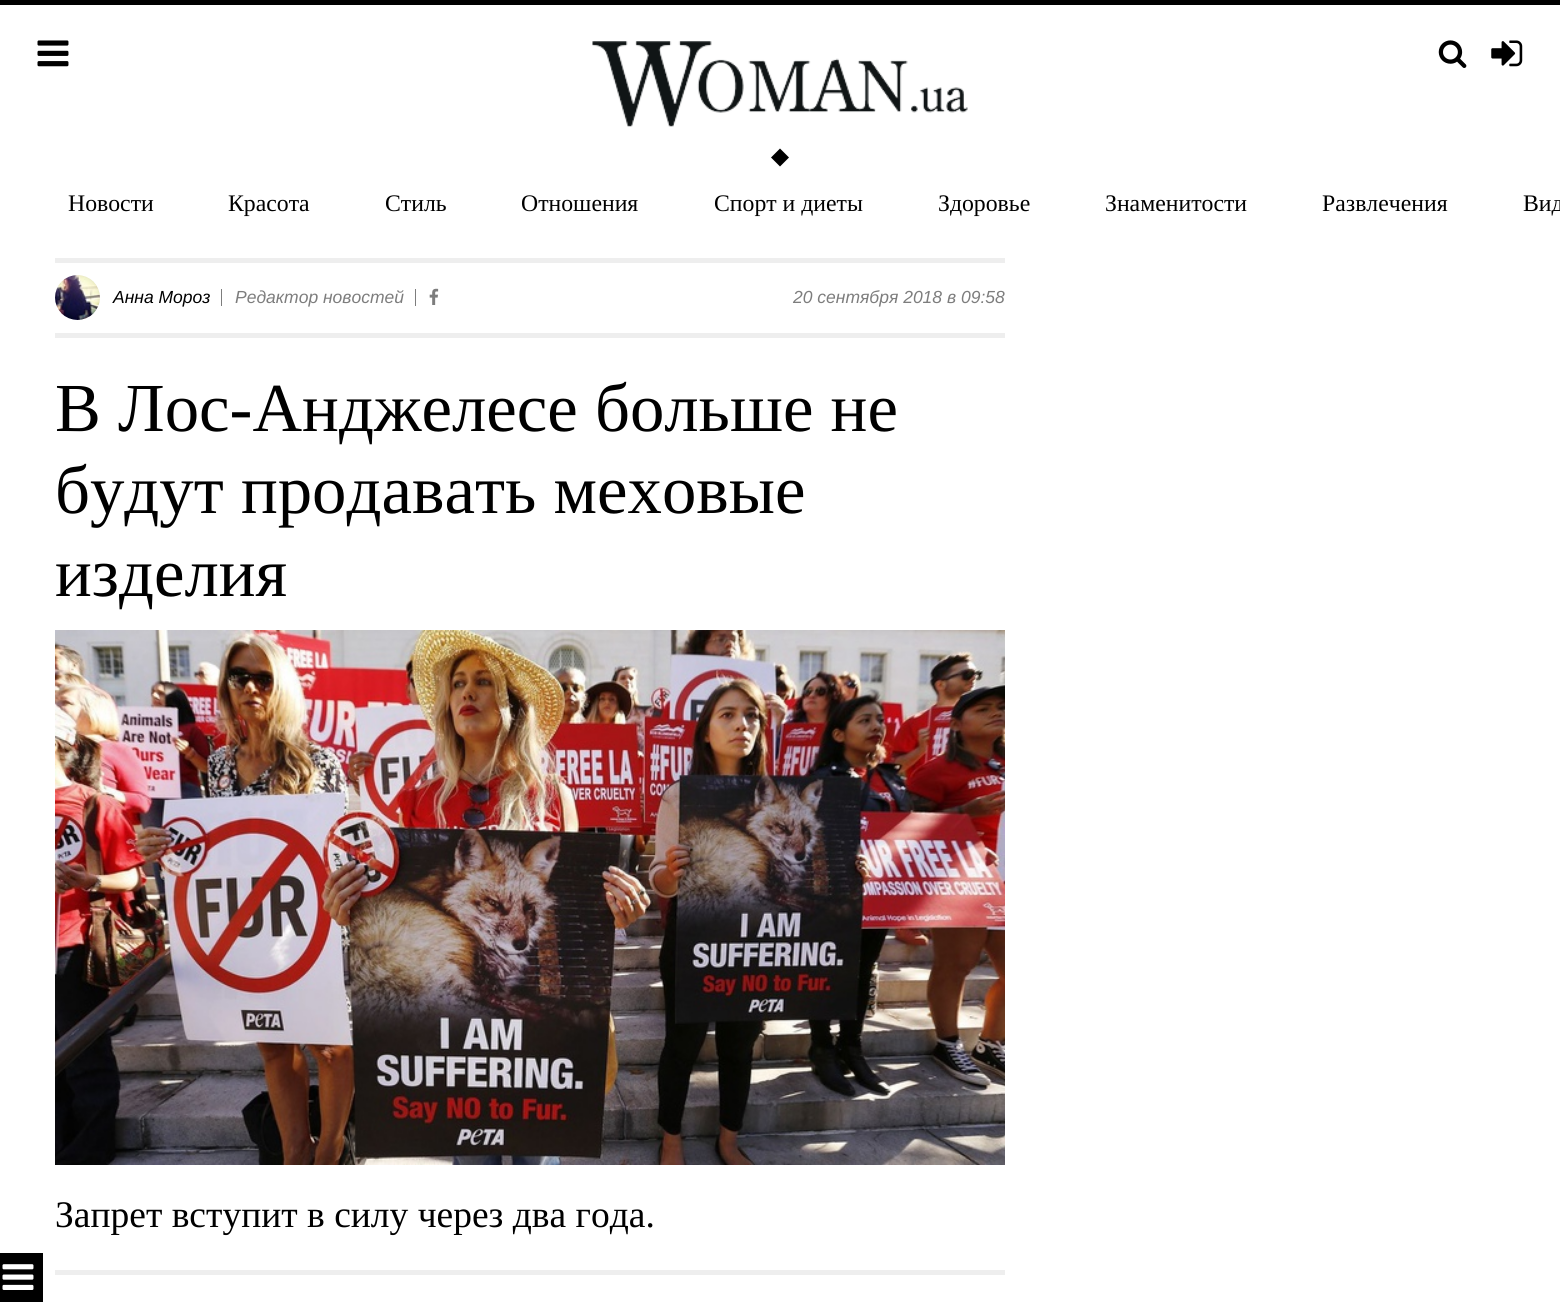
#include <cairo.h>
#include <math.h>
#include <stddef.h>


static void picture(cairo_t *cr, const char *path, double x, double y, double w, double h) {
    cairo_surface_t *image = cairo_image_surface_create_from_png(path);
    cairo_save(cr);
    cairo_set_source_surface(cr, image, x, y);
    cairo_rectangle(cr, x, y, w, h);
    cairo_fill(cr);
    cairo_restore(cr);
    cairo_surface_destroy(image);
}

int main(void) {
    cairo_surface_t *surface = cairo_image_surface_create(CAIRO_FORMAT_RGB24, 1560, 1302);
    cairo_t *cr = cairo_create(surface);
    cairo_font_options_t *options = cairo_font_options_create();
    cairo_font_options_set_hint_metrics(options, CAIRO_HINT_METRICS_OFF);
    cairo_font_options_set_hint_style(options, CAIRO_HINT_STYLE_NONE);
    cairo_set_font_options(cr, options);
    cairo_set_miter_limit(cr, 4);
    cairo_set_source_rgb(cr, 1, 1, 1);
    cairo_paint(cr);
    cairo_set_source_rgb(cr, 0, 0, 0);
    cairo_rectangle(cr, 0, 0, 1560, 5);
    cairo_fill(cr);
    picture(cr, "img1.png", 37, 40, 32, 27);
    picture(cr, "img2.png", 592, 41, 376, 86);
    cairo_new_path(cr);
    cairo_move_to(cr, 780, 148.5);
    cairo_line_to(cr, 789, 157.5);
    cairo_line_to(cr, 780, 166.5);
    cairo_line_to(cr, 771, 157.5);
    cairo_close_path(cr);
    cairo_fill(cr);
    picture(cr, "img3.png", 1438, 40, 29, 28);
    picture(cr, "img4.png", 1491, 40, 32, 27);
    cairo_select_font_face(cr, "Liberation Serif", CAIRO_FONT_SLANT_NORMAL, CAIRO_FONT_WEIGHT_NORMAL);
    cairo_set_font_size(cr, 23.75);
    cairo_move_to(cr, 68, 211);
    cairo_show_text(cr, "Новости");
    cairo_move_to(cr, 228, 211);
    cairo_show_text(cr, "Красота");
    cairo_move_to(cr, 385, 211);
    cairo_show_text(cr, "Стиль");
    cairo_move_to(cr, 521, 211);
    cairo_show_text(cr, "Отношения");
    cairo_move_to(cr, 714, 211);
    cairo_show_text(cr, "Спорт и диеты");
    cairo_move_to(cr, 938, 211);
    cairo_show_text(cr, "Здоровье");
    cairo_move_to(cr, 1105, 211);
    cairo_show_text(cr, "Знаменитости");
    cairo_move_to(cr, 1322, 211);
    cairo_show_text(cr, "Развлечения");
    cairo_move_to(cr, 1523, 211);
    cairo_show_text(cr, "Вид");
    cairo_set_source_rgb(cr, 0.933, 0.933, 0.933);
    cairo_rectangle(cr, 55, 258, 950, 5);
    cairo_fill(cr);
    cairo_rectangle(cr, 55, 333, 950, 5);
    cairo_fill(cr);
    picture(cr, "img5.png", 55, 275, 45, 45);
    cairo_select_font_face(cr, "Liberation Sans", CAIRO_FONT_SLANT_ITALIC, CAIRO_FONT_WEIGHT_NORMAL);
    cairo_set_font_size(cr, 17.5);
    cairo_set_source_rgb(cr, 0, 0, 0);
    cairo_move_to(cr, 113, 303);
    cairo_show_text(cr, "Анна Мороз");
    cairo_set_source_rgb(cr, 0.49, 0.49, 0.49);
    cairo_rectangle(cr, 221, 289, 1, 17);
    cairo_fill(cr);
    cairo_move_to(cr, 235, 303);
    cairo_show_text(cr, "Редактор новостей");
    cairo_rectangle(cr, 415, 289, 1, 17);
    cairo_fill(cr);
    picture(cr, "img6.png", 429, 288, 10, 17);
    cairo_move_to(cr, 793, 303);
    cairo_show_text(cr, "20 сентября 2018 в 09:58");
    cairo_select_font_face(cr, "Liberation Serif", CAIRO_FONT_SLANT_NORMAL, CAIRO_FONT_WEIGHT_NORMAL);
    cairo_set_font_size(cr, 68.75);
    cairo_set_source_rgb(cr, 0, 0, 0);
    cairo_move_to(cr, 55, 431);
    cairo_show_text(cr, "В Лос-Анджелесе больше не");
    cairo_move_to(cr, 55, 513);
    cairo_show_text(cr, "будут продавать меховые");
    cairo_move_to(cr, 55, 596);
    cairo_show_text(cr, "изделия");
    picture(cr, "img7.png", 55, 630, 950, 535);
    cairo_set_source_rgb(cr, 0.933, 0.933, 0.933);
    cairo_rectangle(cr, 55, 1270, 950, 5);
    cairo_fill(cr);
    cairo_set_font_size(cr, 37.5);
    cairo_set_source_rgb(cr, 0, 0, 0);
    cairo_move_to(cr, 55, 1227);
    cairo_show_text(cr, "Запрет вступит в силу через два года.");
    cairo_rectangle(cr, 0, 1253, 43, 49);
    cairo_fill(cr);
    picture(cr, "img8.png", 2, 1264, 32, 26);
    cairo_surface_write_to_png(surface, "page.png");
    cairo_font_options_destroy(options);
    cairo_destroy(cr);
    cairo_surface_destroy(surface);
    return 0;
}
